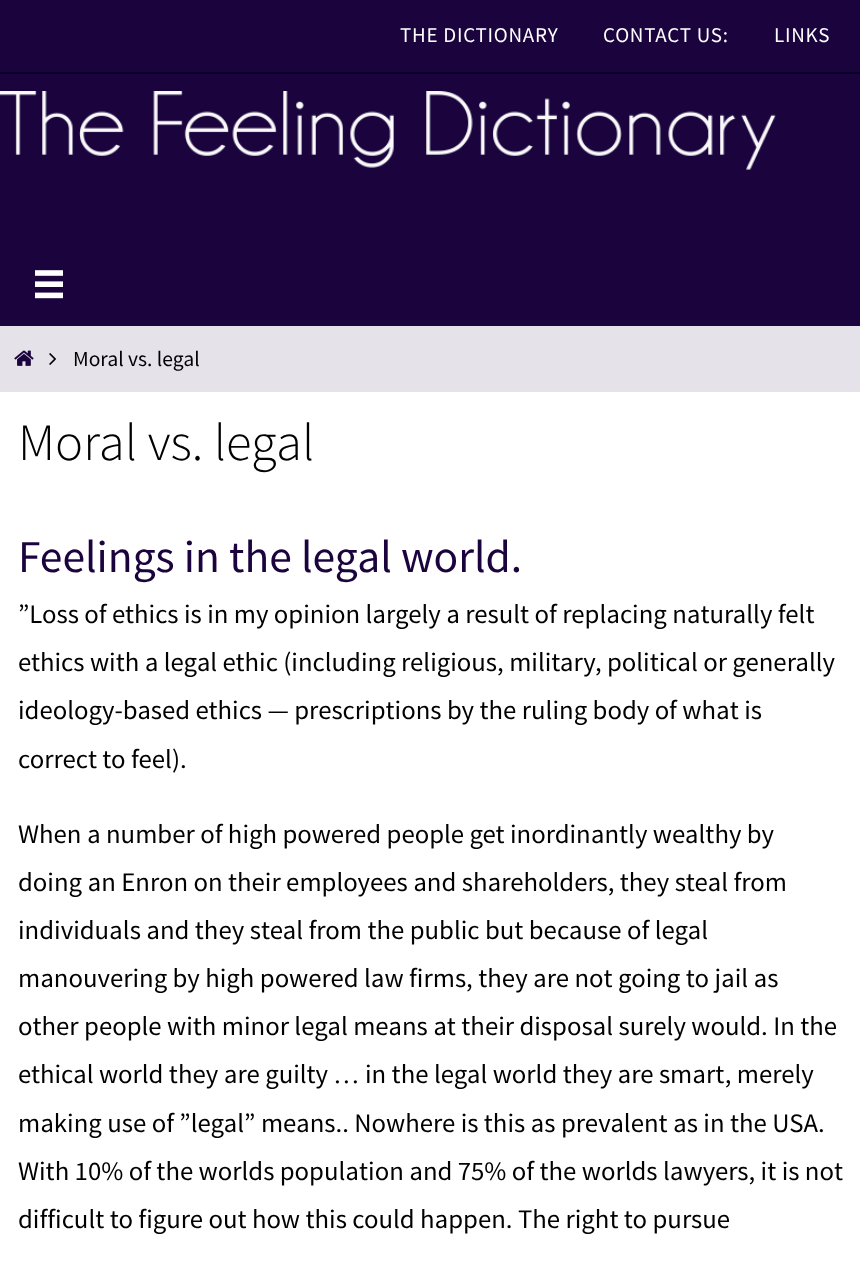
<svg xmlns="http://www.w3.org/2000/svg" width="860" height="1266" viewBox="0 0 860 1266">
  <style>
    .t1 { font: 21px Source Sans Pro; letter-spacing: 0.75px; fill: #fff; }
    .t2 { font: 21.5px Source Sans Pro; fill: #000; }
    .t3 { font: 300 52.5px Source Sans Pro; fill: #000; }
    .t4 { font: 45.5px Source Sans Pro; fill: #1b043e; }
    .t5 { font: 26.75px Source Sans Pro; fill: #000; }
    .t6 { font: 26.75px Liberation Serif; fill: #000; }
  </style>
  <rect width="100%" height="100%" fill="#1b043e"/>
  <rect x="0" y="72" width="860" height="2" fill="#07002a"/>
  <text x="400" y="42" class="t1">THE DICTIONARY</text>
  <text x="603" y="42" class="t1">CONTACT US:</text>
  <text x="774" y="42" class="t1">LINKS</text>
  <image x="0" y="91" width="776" height="79" href="images/1.png"/>
  <image x="35" y="270" width="28" height="29" href="images/2.png"/>
  <rect x="0" y="326" width="860" height="66" fill="#e6e2ea"/>
  <image x="14" y="350" width="20" height="16" href="images/3.png"/>
  <image x="49" y="353" width="7" height="12" href="images/4.png"/>
  <text x="73" y="366" class="t2">Moral vs. legal</text>
  <rect x="0" y="392" width="860" height="874" fill="#fff"/>
  <text x="18" y="460" class="t3">Moral vs. legal</text>
  <text x="18" y="572" class="t4">Feelings in the legal world.</text>
  <text x="18" y="623" class="t5">”Loss of ethics is in my opinion largely a result of replacing naturally felt</text>
  <text x="18" y="671" class="t5">ethics with a legal ethic (including religious, military, political or generally</text>
  <text x="18" y="719" class="t5">ideology-based ethics — prescriptions by the ruling body of what is</text>
  <text x="18" y="768" class="t5">correct to feel).</text>
  <text x="18" y="843" class="t5">When a number of high powered people get inordinantly wealthy by</text>
  <text x="18" y="891" class="t5">doing an Enron on their employees and shareholders, they steal from</text>
  <text x="18" y="939" class="t5">individuals and they steal from the public but because of legal</text>
  <text x="18" y="987" class="t5">manouvering by high powered law firms, they are not going to jail as</text>
  <text x="18" y="1035" class="t5">other people with minor legal means at their disposal surely would. In the</text>
  <text x="18" y="1083" class="t5">ethical world they are guilty</text>
  <text x="333" y="1083" class="t6">…</text>
  <text x="365" y="1083" class="t5">in the legal world they are smart, merely</text>
  <text x="18" y="1132" class="t5">making use of ”legal” means.. Nowhere is this as prevalent as in the USA.</text>
  <text x="18" y="1180" class="t5">With 10% of the worlds population and 75% of the worlds lawyers, it is not</text>
  <text x="18" y="1228" class="t5">difficult to figure out how this could happen. The right to pursue</text>
</svg>
